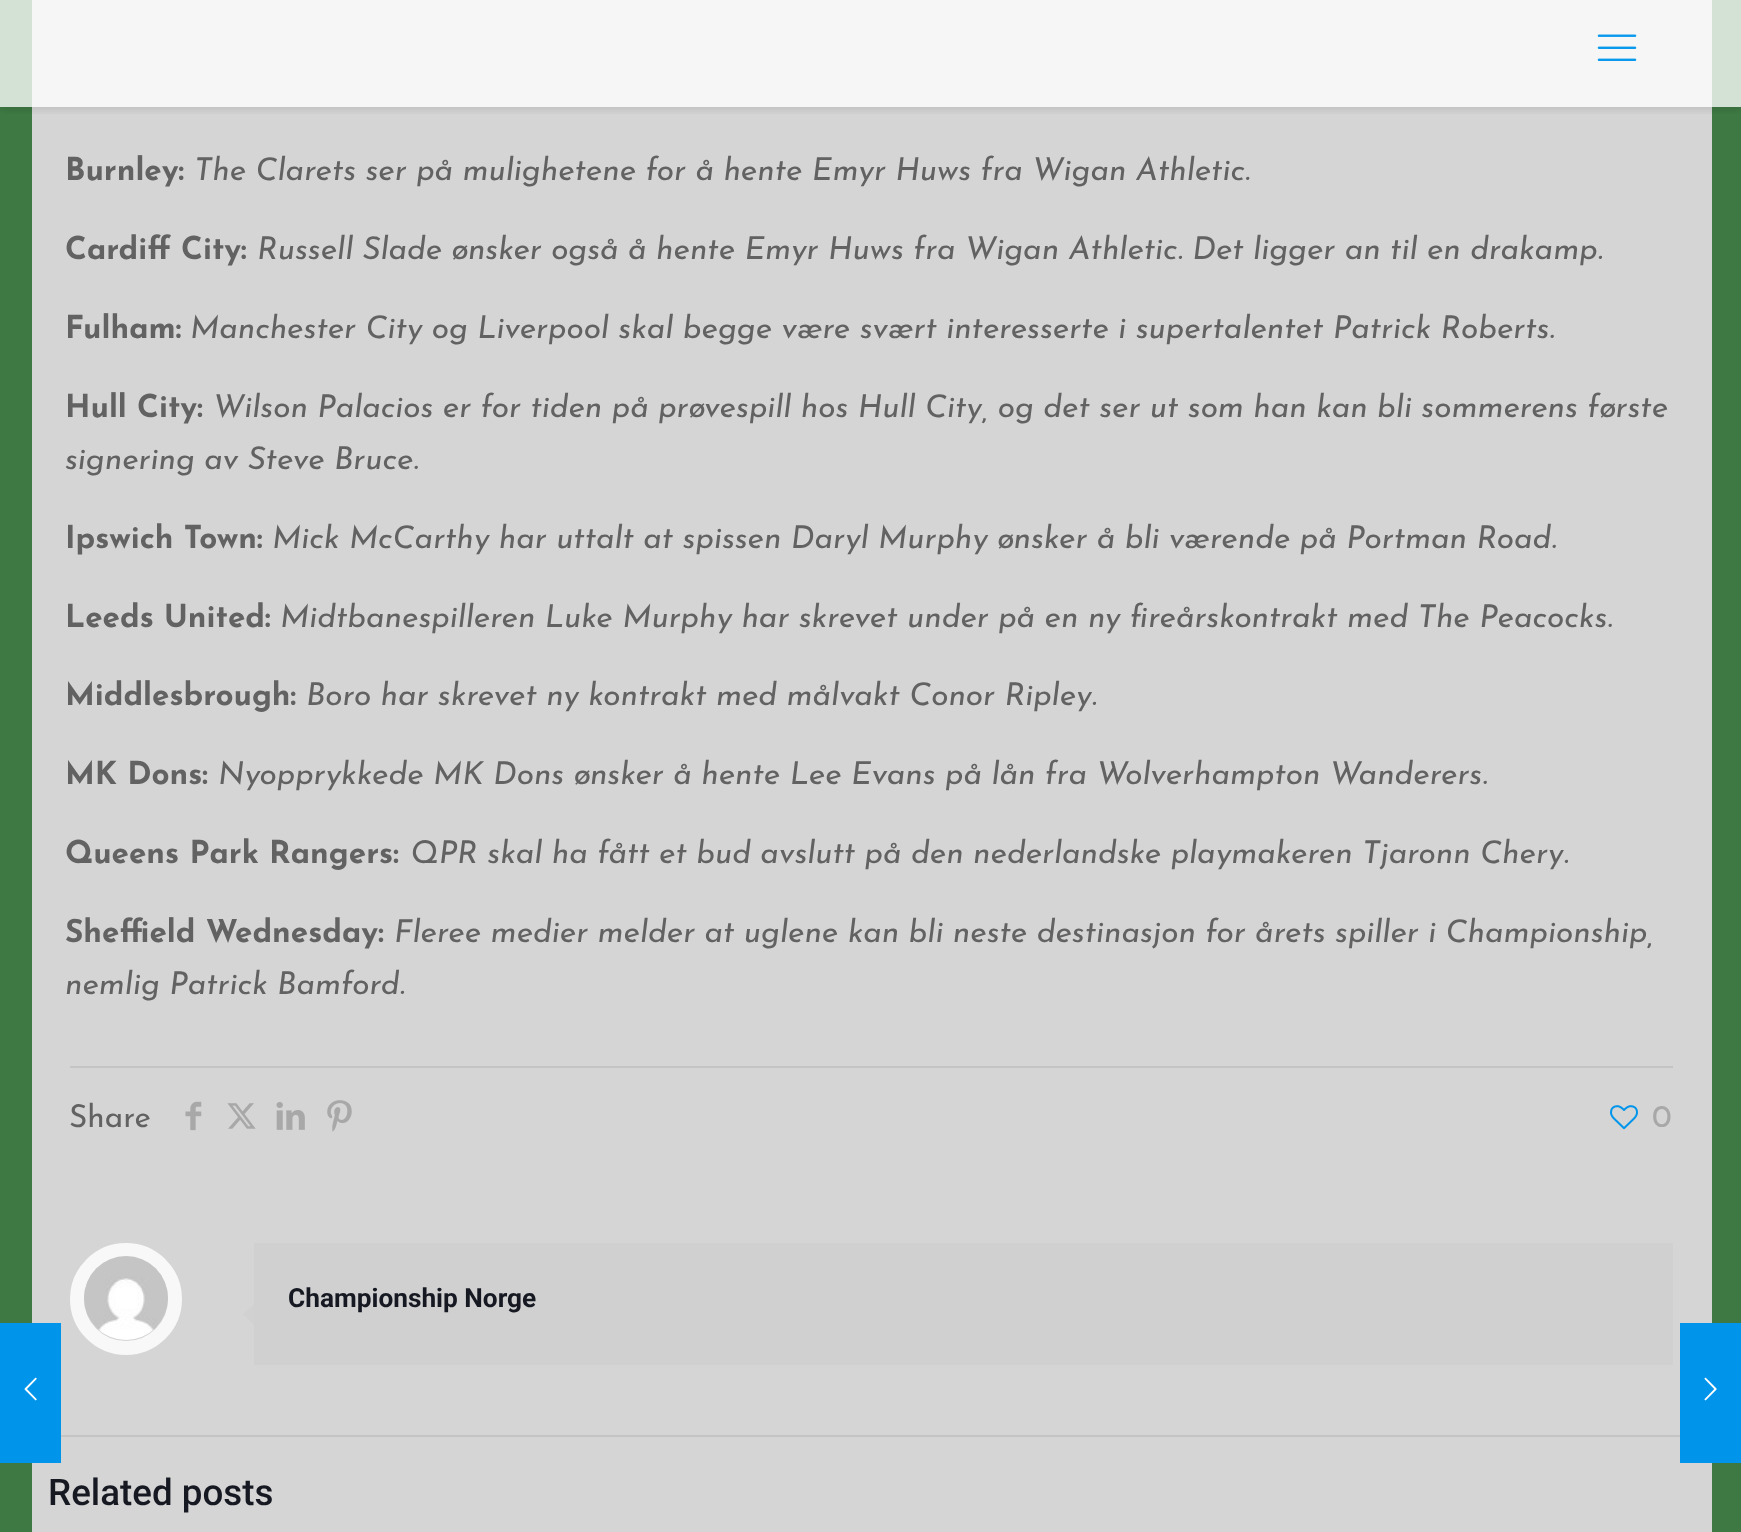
<svg xmlns="http://www.w3.org/2000/svg" width="1741" height="1532" viewBox="0 0 1741 1532">
  <style>
    .t1 { font: bold 31.5px Josefin Sans; fill: #626262; }
    .t2 { font: italic 31.5px Josefin Sans; fill: #626262; }
    .t3 { font: 31.5px Josefin Sans; fill: #626262; }
    .t4 { font: 31.5px Josefin Sans; fill: #a8a8a8; }
    .t5 { font: bold 26.25px Roboto; fill: #161922; }
    .t6 { font: 500 36.75px Roboto; fill: #161922; }
  </style>
  <defs>
    <clipPath id="clip1"><rect x="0" y="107" width="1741" height="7"/></clipPath>
  </defs>
  <rect width="100%" height="100%" fill="#3e7943"/>
  <rect x="32" y="0" width="1680" height="1532" fill="#d5d5d5"/>
  <rect x="0" y="1323" width="61" height="140" fill="#0095eb"/>
  <image x="24" y="1377" width="13" height="24" href="images/1.png"/>
  <g clip-path="url(#clip1)">
    <rect x="0" y="4" width="1741" height="106" fill="#0000001a" filter="blur(4.5px)"/>
  </g>
  <rect x="0" y="0" width="1741" height="107" fill="#ffffffc7"/>
  <image x="1597" y="34" width="40" height="27" href="images/2.png"/>
  <text x="65" y="180" class="t1">Burnley:</text>
  <text x="194" y="180" class="t2">The Clarets ser på mulighetene for å hente Emyr Huws fra Wigan Athletic.</text>
  <text x="65" y="259" class="t1">Cardiff City:</text>
  <text x="257" y="259" class="t2">Russell Slade ønsker også å hente Emyr Huws fra Wigan Athletic. Det ligger an til en drakamp.</text>
  <text x="65" y="338" class="t1">Fulham:</text>
  <text x="190" y="338" class="t2">Manchester City og Liverpool skal begge være svært interesserte i supertalentet Patrick Roberts.</text>
  <text x="65" y="417" class="t1">Hull City:</text>
  <text x="213" y="417" class="t2">Wilson Palacios er for tiden på prøvespill hos Hull City, og det ser ut som han kan bli sommerens første</text>
  <text x="65" y="469" class="t2">signering av Steve Bruce.</text>
  <text x="65" y="548" class="t1">Ipswich Town:</text>
  <text x="272" y="548" class="t2">Mick McCarthy har uttalt at spissen Daryl Murphy ønsker å bli værende på Portman Road.</text>
  <text x="65" y="627" class="t1">Leeds United:</text>
  <text x="280" y="627" class="t2">Midtbanespilleren Luke Murphy har skrevet under på en ny fireårskontrakt med The Peacocks.</text>
  <text x="65" y="705" class="t1">Middlesbrough:</text>
  <text x="306" y="705" class="t2">Boro har skrevet ny kontrakt med målvakt Conor Ripley.</text>
  <text x="65" y="784" class="t1">MK Dons:</text>
  <text x="218" y="784" class="t2">Nyopprykkede MK Dons ønsker å hente Lee Evans på lån fra Wolverhampton Wanderers.</text>
  <text x="65" y="863" class="t1">Queens Park Rangers:</text>
  <text x="409" y="863" class="t2">QPR skal ha fått et bud avslutt på den nederlandske playmakeren Tjaronn Chery.</text>
  <text x="65" y="942" class="t1">Sheffield Wednesday:</text>
  <text x="394" y="942" class="t2">Fleree medier melder at uglene kan bli neste destinasjon for årets spiller i Championship,</text>
  <text x="65" y="994" class="t2">nemlig Patrick Bamford.</text>
  <rect x="70" y="1066" width="1603" height="2" fill="#c4c4c4"/>
  <text x="69" y="1127" class="t3">Share</text>
  <image x="185" y="1101" width="17" height="30" href="images/3.png"/>
  <image x="227" y="1103" width="29" height="26" href="images/4.png"/>
  <image x="276" y="1102" width="29" height="28" href="images/5.png"/>
  <image x="327" y="1100" width="25" height="32" href="images/6.png"/>
  <image x="1610" y="1105" width="28" height="25" href="images/7.png"/>
  <text x="1652" y="1127" class="t4">0</text>
  <circle cx="126" cy="1299" r="49" fill="none" stroke="#f8f8f8" stroke-width="14"/>
  <image x="84" y="1256" width="84" height="84" href="images/8.png"/>
  <rect x="254" y="1243" width="1419" height="122" fill="#d0d0d0"/>
  <path d="M254 1304V1325L243 1314Z" fill="#d1d1d1"/>
  <text x="288" y="1307" class="t5">Championship Norge</text>
  <rect x="61" y="1435" width="1619" height="2" fill="#c4c4c4"/>
  <text x="48" y="1505" class="t6">Related posts</text>
  <rect x="1680" y="1323" width="61" height="140" fill="#0095eb"/>
  <image x="1704" y="1377" width="13" height="24" href="images/9.png"/>
</svg>
